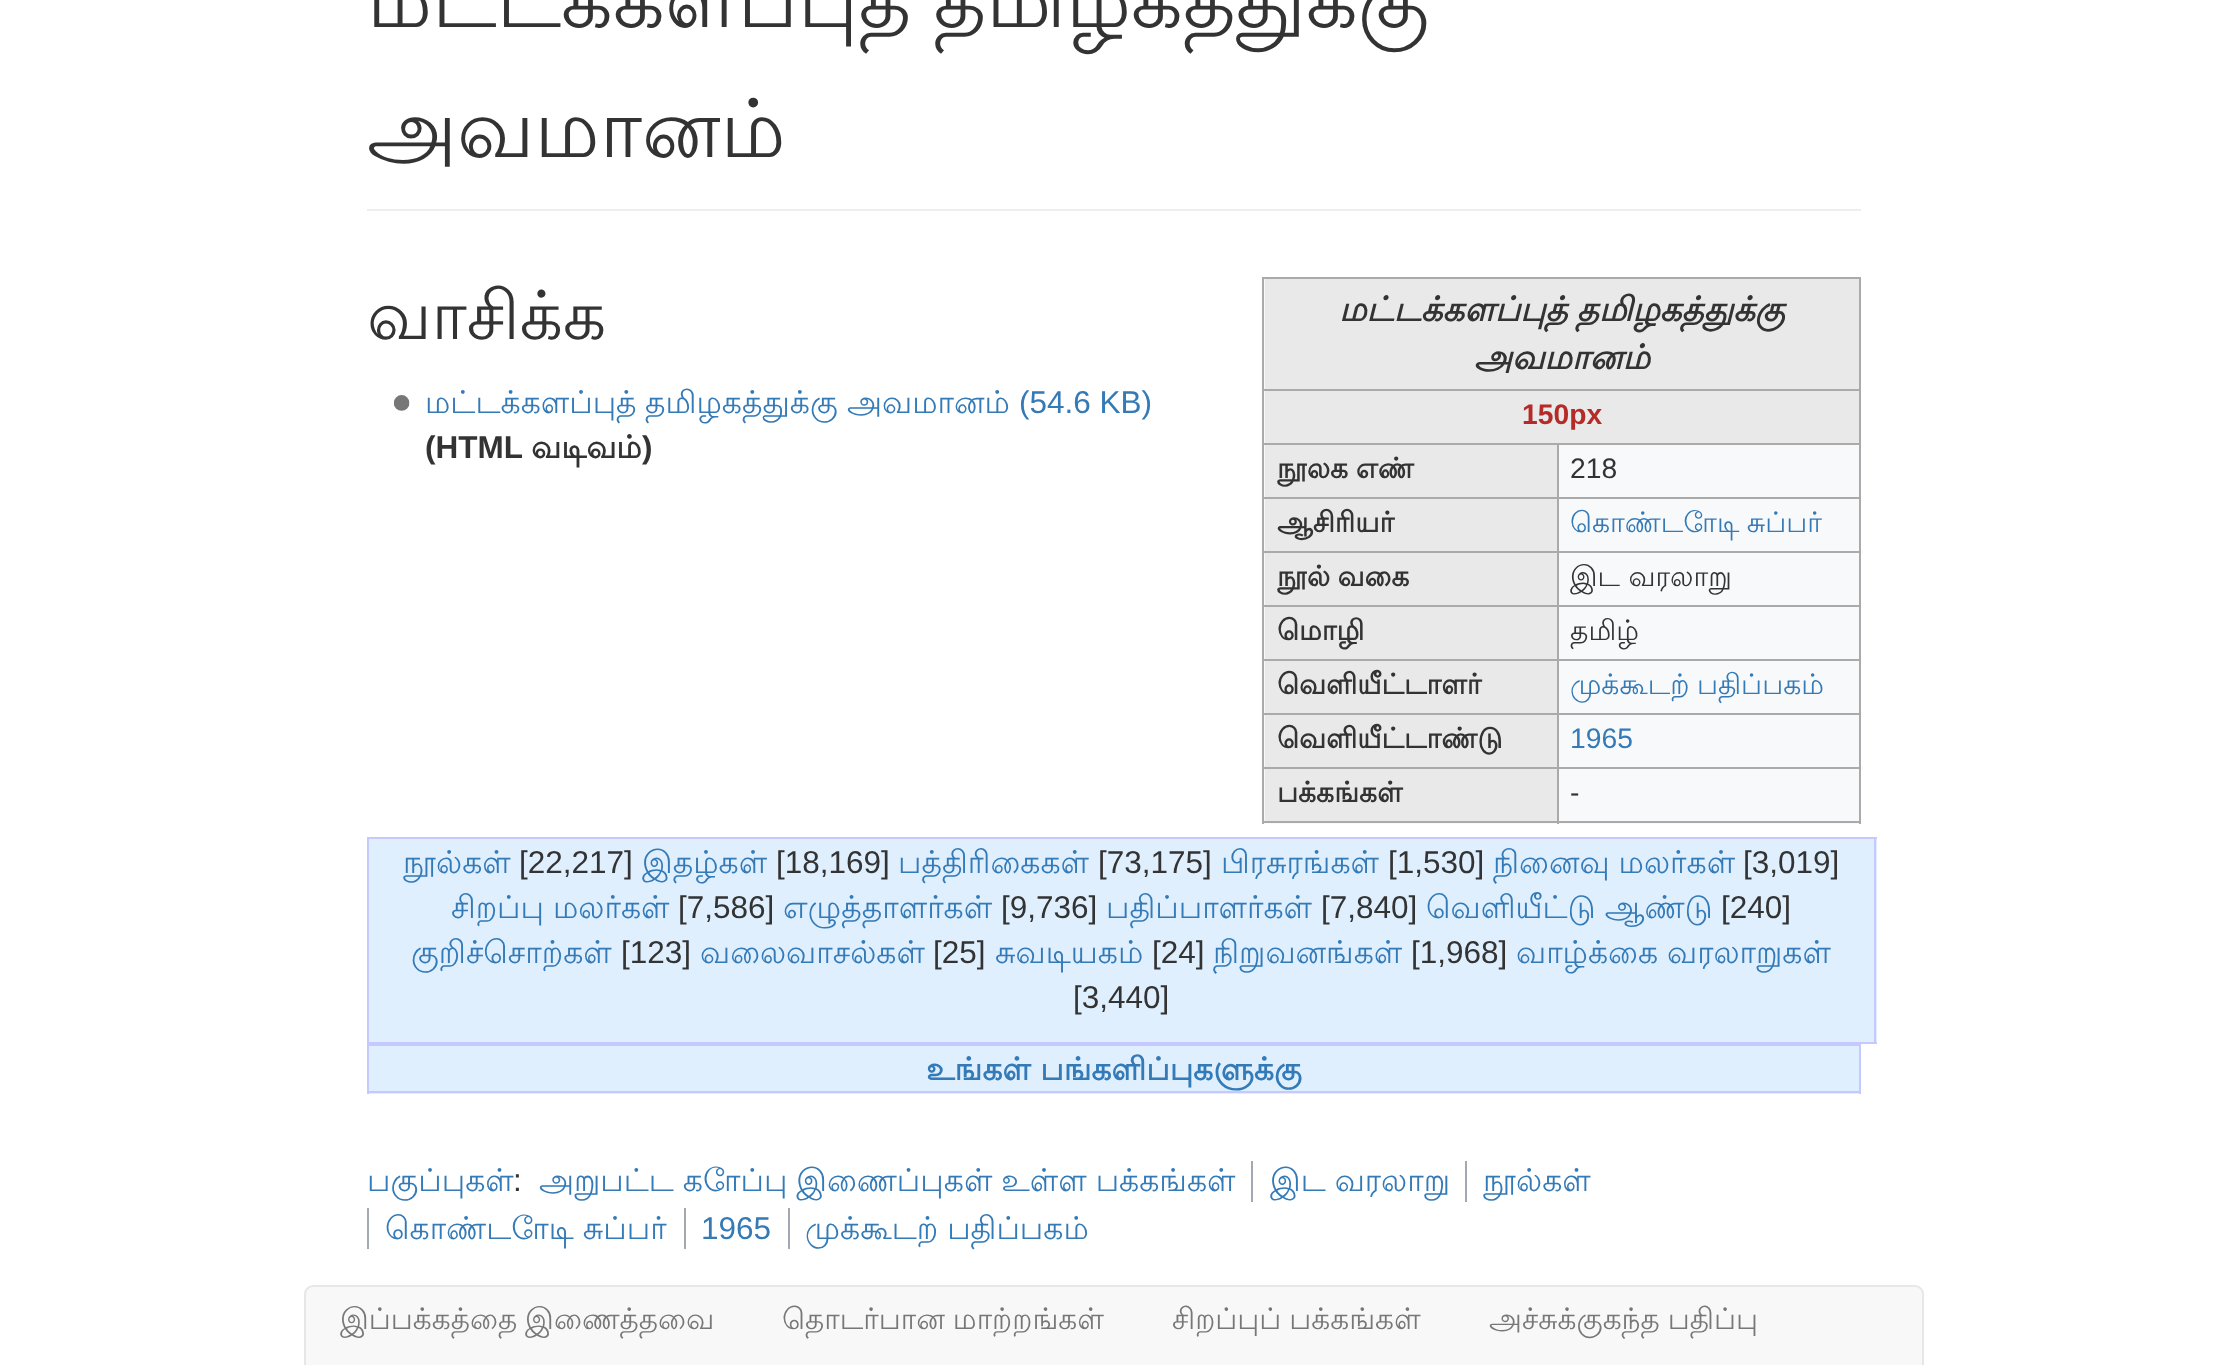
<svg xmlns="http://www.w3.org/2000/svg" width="2227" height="1365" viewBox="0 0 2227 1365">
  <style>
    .t1 { font: 81px Lohit Tamil; fill: #333; }
    .t2 { font: 67.5px Lohit Tamil; fill: #333; }
    .t3 { font: italic bold 34px Lohit Tamil; fill: #333; }
    .t4 { font: bold 28.25px Liberation Sans; fill: #b52b27; }
    .t5 { font: bold 28.25px Lohit Tamil; fill: #333; }
    .t6 { font: 28.25px Liberation Sans; fill: #333; }
    .t7 { font: 28.25px Lohit Tamil; fill: #337ab7; }
    .t8 { font: 28.25px Lohit Tamil; fill: #333; }
    .t9 { font: 28.25px Liberation Sans; fill: #337ab7; }
    .t10 { font: 31.5px Lohit Tamil; fill: #337ab7; }
    .t11 { font: 31.5px Liberation Sans; fill: #337ab7; }
    .t12 { font: bold 31.5px Liberation Sans; fill: #333; }
    .t13 { font: bold 31.5px Lohit Tamil; fill: #333; }
    .t14 { font: 31.5px Liberation Sans; fill: #333; }
    .t15 { font: bold 31.5px Lohit Tamil; fill: #337ab7; }
    .t16 { font: 29.6px Lohit Tamil; fill: #777; }
  </style>
  <rect width="100%" height="100%" fill="#fff"/>
  <rect x="367" y="209" width="1494" height="2" fill="#eee"/>
  <text x="367" y="27" word-spacing="-2" class="t1">மட்டக்களப்புத் தமிழகத்துக்கு</text>
  <text x="367" y="157" class="t1">அவமானம்</text>
  <text x="367" y="339" class="t2">வாசிக்க</text>
  <rect x="1264" y="279" width="595" height="545" fill="#f8f9fa"/>
  <rect x="1265" y="279" width="594" height="110" fill="#e9e9e9"/>
  <rect x="1262" y="277" width="599" height="2" fill="#aaa"/>
  <rect x="1262" y="389" width="599" height="2" fill="#aaa"/>
  <rect x="1557" y="443" width="304" height="2" fill="#aaa"/>
  <rect x="1557" y="497" width="304" height="2" fill="#aaa"/>
  <rect x="1557" y="551" width="304" height="2" fill="#aaa"/>
  <rect x="1557" y="605" width="304" height="2" fill="#aaa"/>
  <rect x="1557" y="659" width="304" height="2" fill="#aaa"/>
  <rect x="1557" y="713" width="304" height="2" fill="#aaa"/>
  <rect x="1557" y="767" width="304" height="2" fill="#aaa"/>
  <rect x="1859" y="767" width="2" height="57" fill="#aaa"/>
  <rect x="1859" y="713" width="2" height="57" fill="#aaa"/>
  <rect x="1859" y="659" width="2" height="57" fill="#aaa"/>
  <rect x="1859" y="605" width="2" height="57" fill="#aaa"/>
  <rect x="1859" y="551" width="2" height="57" fill="#aaa"/>
  <rect x="1859" y="497" width="2" height="57" fill="#aaa"/>
  <rect x="1859" y="443" width="2" height="57" fill="#aaa"/>
  <rect x="1859" y="389" width="2" height="57" fill="#aaa"/>
  <rect x="1859" y="277" width="2" height="115" fill="#aaa"/>
  <rect x="1557" y="821" width="304" height="2" fill="#aaa"/>
  <rect x="1557" y="767" width="2" height="57" fill="#aaa"/>
  <rect x="1262" y="767" width="297" height="2" fill="#aaa"/>
  <rect x="1557" y="713" width="2" height="57" fill="#aaa"/>
  <rect x="1262" y="713" width="297" height="2" fill="#aaa"/>
  <rect x="1557" y="659" width="2" height="57" fill="#aaa"/>
  <rect x="1262" y="659" width="297" height="2" fill="#aaa"/>
  <rect x="1557" y="605" width="2" height="57" fill="#aaa"/>
  <rect x="1262" y="605" width="297" height="2" fill="#aaa"/>
  <rect x="1557" y="551" width="2" height="57" fill="#aaa"/>
  <rect x="1262" y="551" width="297" height="2" fill="#aaa"/>
  <rect x="1557" y="497" width="2" height="57" fill="#aaa"/>
  <rect x="1262" y="497" width="297" height="2" fill="#aaa"/>
  <rect x="1557" y="443" width="2" height="57" fill="#aaa"/>
  <rect x="1262" y="443" width="297" height="2" fill="#aaa"/>
  <rect x="1262" y="821" width="297" height="2" fill="#aaa"/>
  <rect x="1262" y="767" width="2" height="57" fill="#aaa"/>
  <rect x="1262" y="713" width="2" height="57" fill="#aaa"/>
  <rect x="1262" y="659" width="2" height="57" fill="#aaa"/>
  <rect x="1262" y="605" width="2" height="57" fill="#aaa"/>
  <rect x="1262" y="551" width="2" height="57" fill="#aaa"/>
  <rect x="1262" y="497" width="2" height="57" fill="#aaa"/>
  <rect x="1262" y="443" width="2" height="57" fill="#aaa"/>
  <rect x="1262" y="389" width="2" height="57" fill="#aaa"/>
  <rect x="1262" y="277" width="2" height="115" fill="#aaa"/>
  <text x="1339" y="321" word-spacing="-1" class="t3">மட்டக்களப்புத் தமிழகத்துக்கு</text>
  <text x="1474" y="369" class="t3">அவமானம்</text>
  <rect x="1265" y="391" width="594" height="52" fill="#e9e9e9"/>
  <text x="1522" y="424" class="t4">150px</text>
  <rect x="1265" y="445" width="292" height="52" fill="#e9e9e9"/>
  <text x="1277" y="478" word-spacing="-1" class="t5">நூலக எண்</text>
  <text x="1570" y="478" class="t6">218</text>
  <rect x="1265" y="499" width="292" height="52" fill="#e9e9e9"/>
  <text x="1277" y="532" class="t5">ஆசிரியர்</text>
  <text x="1570" y="532" word-spacing="-1" class="t7">கொண்டோடி சுப்பர்</text>
  <rect x="1265" y="553" width="292" height="52" fill="#e9e9e9"/>
  <text x="1277" y="586" word-spacing="-1" class="t5">நூல் வகை</text>
  <text x="1570" y="586" class="t8">இட வரலாறு</text>
  <rect x="1265" y="607" width="292" height="52" fill="#e9e9e9"/>
  <text x="1277" y="640" class="t5">மொழி</text>
  <text x="1570" y="640" class="t8">தமிழ்</text>
  <rect x="1265" y="661" width="292" height="52" fill="#e9e9e9"/>
  <text x="1277" y="694" class="t5">வெளியீட்டாளர்</text>
  <text x="1570" y="694" word-spacing="-1" class="t7">முக்கூடற் பதிப்பகம்</text>
  <rect x="1265" y="715" width="292" height="52" fill="#e9e9e9"/>
  <text x="1277" y="748" class="t5">வெளியீட்டாண்டு</text>
  <text x="1570" y="748" class="t9">1965</text>
  <rect x="1265" y="769" width="292" height="52" fill="#e9e9e9"/>
  <text x="1277" y="802" class="t5">பக்கங்கள்</text>
  <text x="1570" y="802" class="t6">-</text>
  <image x="394" y="395" width="16" height="16" href="images/1.png"/>
  <text x="425" y="413" class="t10">மட்டக்களப்புத்</text>
  <text x="645" y="413" class="t10">தமிழகத்துக்கு</text>
  <text x="847" y="413" class="t10">அவமானம்</text>
  <text x="1019" y="413" class="t11">(54.6 KB)</text>
  <text x="425" y="458" class="t12">(HTML</text>
  <text x="531" y="458" class="t13">வடிவம்</text>
  <text x="642" y="458" class="t12">)</text>
  <rect x="369" y="839" width="1508" height="203" fill="#dfeffe"/>
  <rect x="367" y="837" width="1510" height="2" fill="#c6c9ff"/>
  <rect x="1874" y="837" width="2" height="207" fill="#c6c9ff"/>
  <rect x="367" y="1042" width="1510" height="2" fill="#c6c9ff"/>
  <rect x="367" y="837" width="2" height="207" fill="#c6c9ff"/>
  <text x="403" y="873" class="t10">நூல்கள்</text>
  <text x="519" y="873" class="t14">[22,217]</text>
  <text x="642" y="873" class="t10">இதழ்கள்</text>
  <text x="776" y="873" class="t14">[18,169]</text>
  <text x="898" y="873" class="t10">பத்திரிகைகள்</text>
  <text x="1098" y="873" class="t14">[73,175]</text>
  <text x="1221" y="873" class="t10">பிரசுரங்கள்</text>
  <text x="1388" y="873" class="t14">[1,530]</text>
  <text x="1493" y="873" word-spacing="-0.5" class="t10">நினைவு மலர்கள்</text>
  <text x="1743" y="873" class="t14">[3,019]</text>
  <text x="451" y="918" word-spacing="-0.5" class="t10">சிறப்பு மலர்கள்</text>
  <text x="678" y="918" class="t14">[7,586]</text>
  <text x="783" y="918" class="t10">எழுத்தாளர்கள்</text>
  <text x="1001" y="918" class="t14">[9,736]</text>
  <text x="1106" y="918" class="t10">பதிப்பாளர்கள்</text>
  <text x="1321" y="918" class="t14">[7,840]</text>
  <text x="1426" y="918" word-spacing="-0.5" class="t10">வெளியீட்டு ஆண்டு</text>
  <text x="1721" y="918" class="t14">[240]</text>
  <text x="411" y="963" class="t10">குறிச்சொற்கள்</text>
  <text x="621" y="963" class="t14">[123]</text>
  <text x="700" y="963" class="t10">வலைவாசல்கள்</text>
  <text x="933" y="963" class="t14">[25]</text>
  <text x="995" y="963" class="t10">சுவடியகம்</text>
  <text x="1152" y="963" class="t14">[24]</text>
  <text x="1213" y="963" class="t10">நிறுவனங்கள்</text>
  <text x="1411" y="963" class="t14">[1,968]</text>
  <text x="1516" y="963" word-spacing="-0.5" class="t10">வாழ்க்கை வரலாறுகள்</text>
  <text x="1073" y="1008" class="t14">[3,440]</text>
  <rect x="369" y="1046" width="1490" height="48" fill="#dfeffe"/>
  <rect x="367" y="1044" width="1494" height="2" fill="#c6c9ff"/>
  <rect x="1859" y="1044" width="2" height="50" fill="#c6c9ff"/>
  <rect x="367" y="1091" width="1494" height="2" fill="#c6c9ff"/>
  <rect x="367" y="1044" width="2" height="50" fill="#c6c9ff"/>
  <text x="926" y="1080" class="t15">உங்கள் பங்களிப்புகளுக்கு</text>
  <text x="539" y="1191" word-spacing="-0.5" class="t10">அறுபட்ட கோப்பு இணைப்புகள் உள்ள பக்கங்கள்</text>
  <rect x="1251" y="1161" width="2" height="41" fill="#a2a9b1"/>
  <text x="1270" y="1191" word-spacing="-0.5" class="t10">இட வரலாறு</text>
  <rect x="1465" y="1161" width="2" height="41" fill="#a2a9b1"/>
  <text x="1483" y="1191" class="t10">நூல்கள்</text>
  <rect x="367" y="1208" width="2" height="41" fill="#a2a9b1"/>
  <text x="385" y="1239" word-spacing="-0.5" class="t10">கொண்டோடி சுப்பர்</text>
  <rect x="684" y="1208" width="2" height="41" fill="#a2a9b1"/>
  <text x="701" y="1239" class="t11">1965</text>
  <rect x="788" y="1208" width="2" height="41" fill="#a2a9b1"/>
  <text x="805" y="1239" word-spacing="-0.5" class="t10">முக்கூடற் பதிப்பகம்</text>
  <text x="367" y="1191" class="t10">பகுப்புகள்</text>
  <text x="513" y="1191" class="t14">:</text>
  <rect x="305" y="1286" width="1618" height="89" rx="8" fill="#f8f8f8" stroke="#e7e7e7" stroke-width="2"/>
  <text x="340" y="1329" word-spacing="-1" class="t16">இப்பக்கத்தை இணைத்தவை</text>
  <text x="782" y="1329" word-spacing="-1" class="t16">தொடர்பான மாற்றங்கள்</text>
  <text x="1172" y="1329" word-spacing="-1" class="t16">சிறப்புப் பக்கங்கள்</text>
  <text x="1489" y="1329" word-spacing="-1" class="t16">அச்சுக்குகந்த பதிப்பு</text>
</svg>
